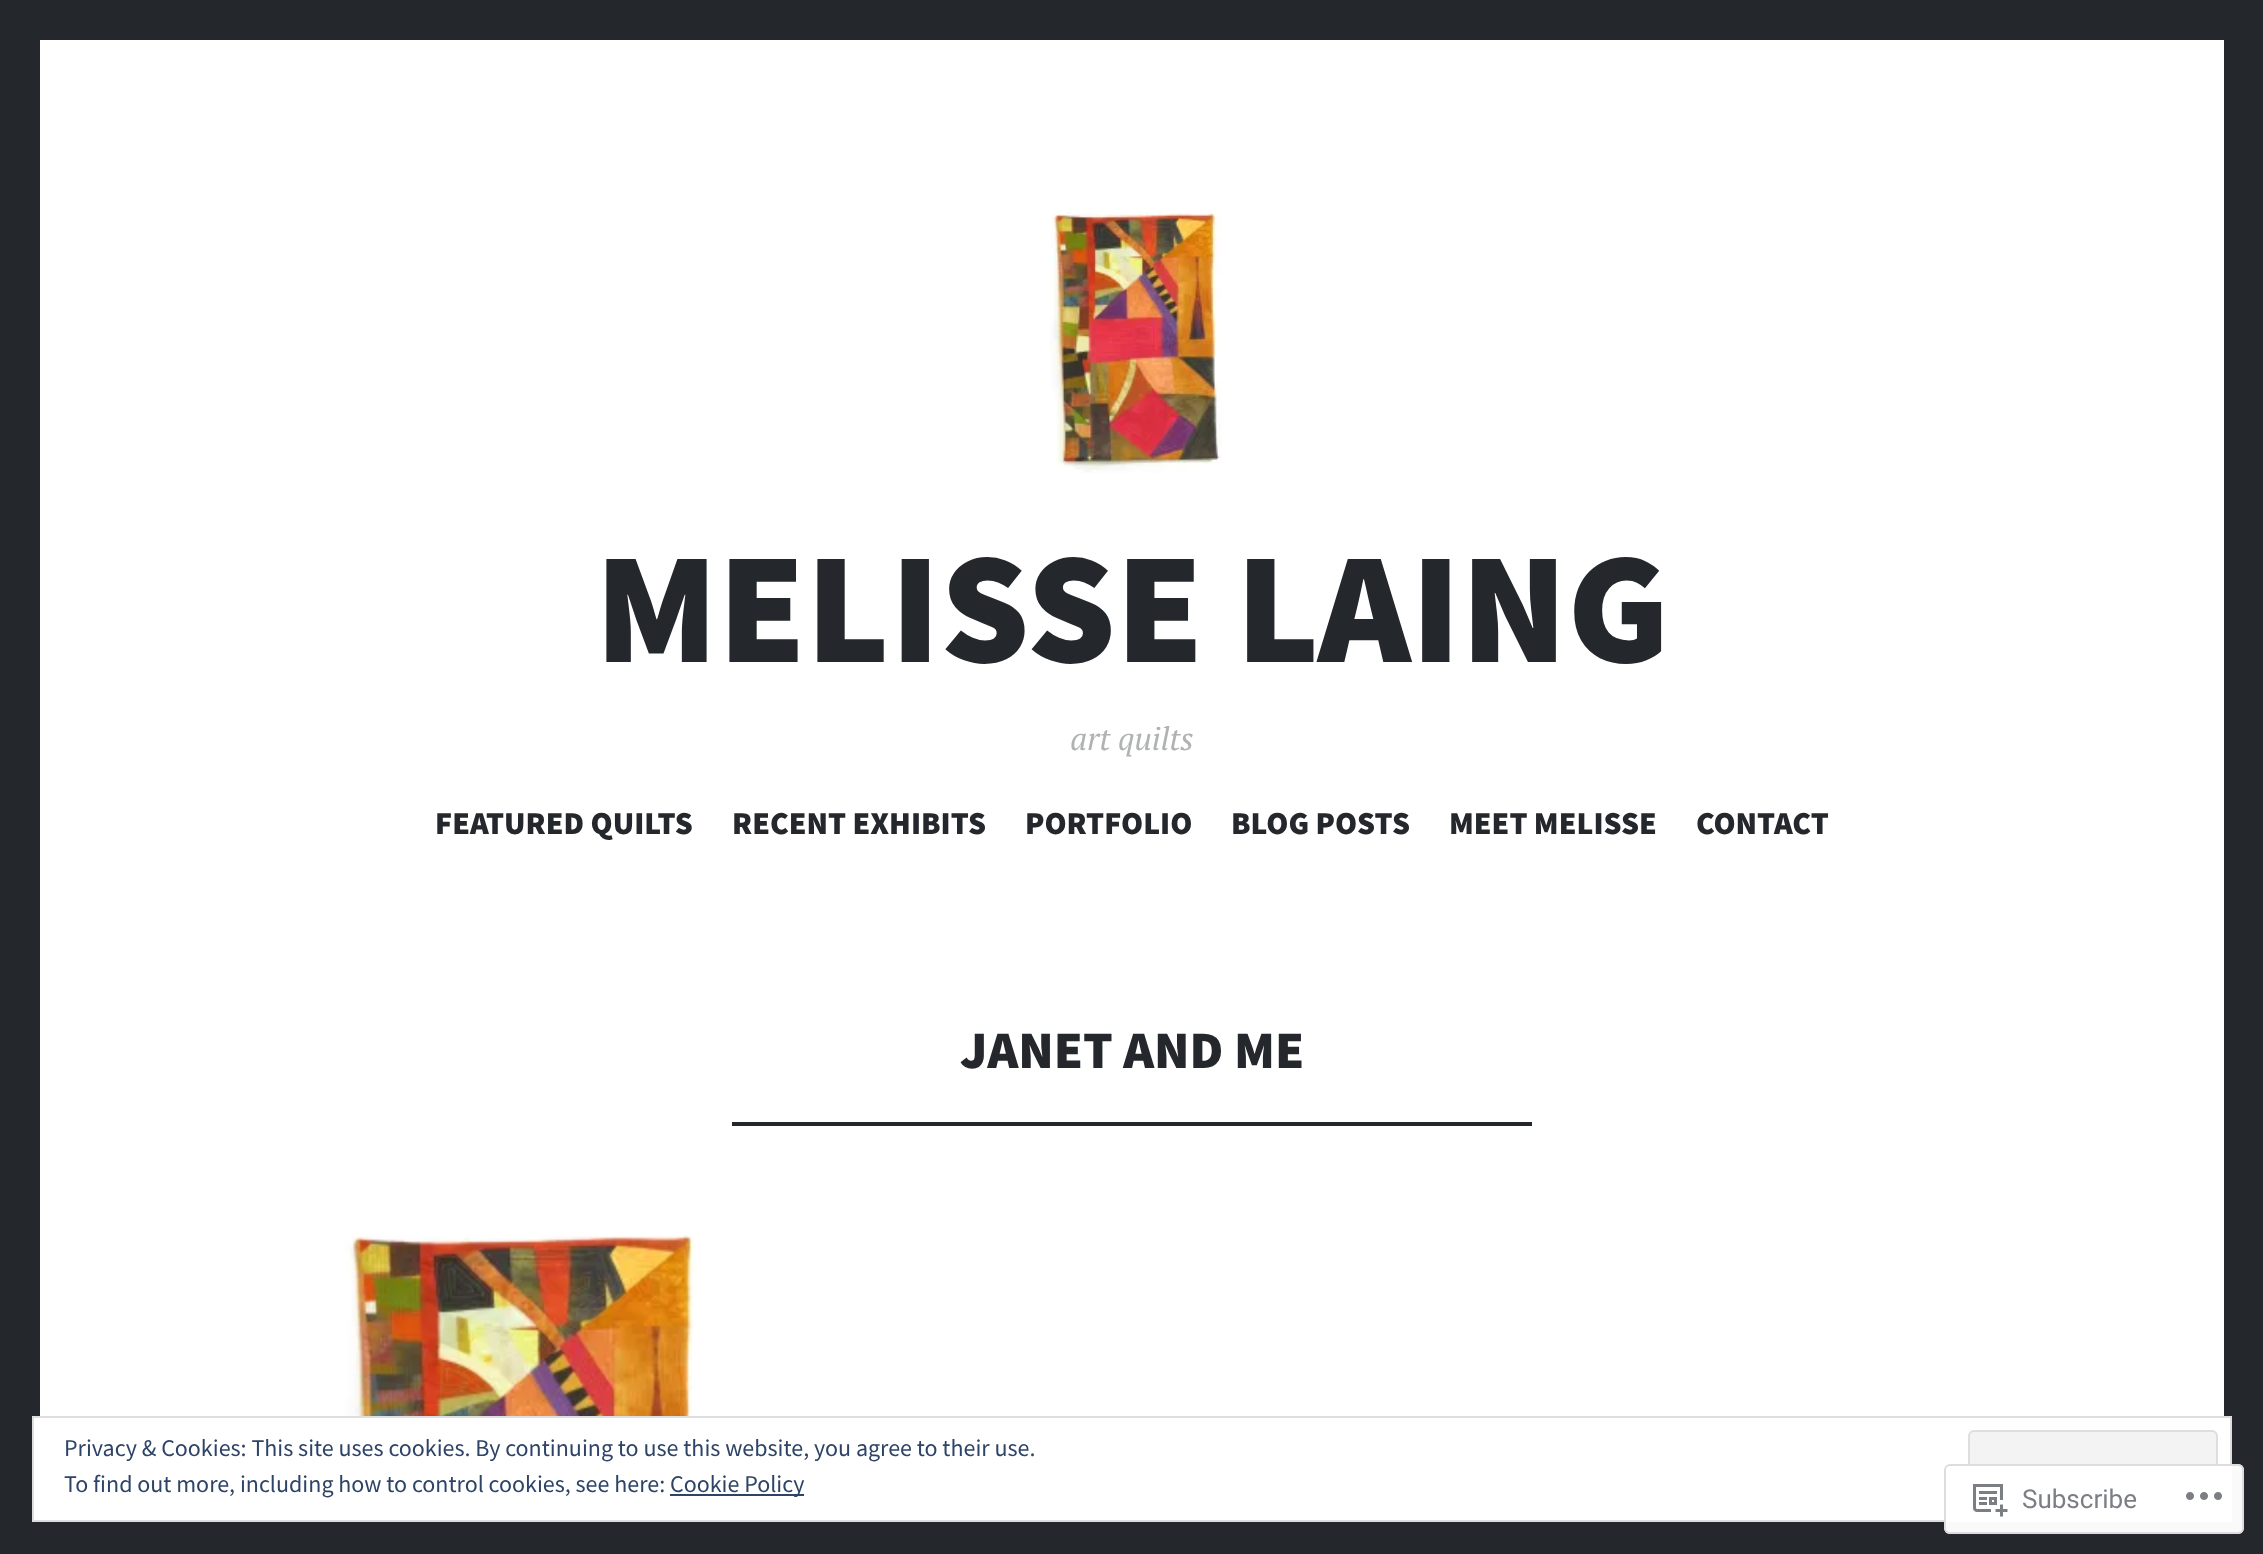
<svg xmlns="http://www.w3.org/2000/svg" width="2263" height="1554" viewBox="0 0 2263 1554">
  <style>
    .t1 { font: 900 158.5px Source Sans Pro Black; fill: #24282d; }
    .t2 { font: italic 32px PT Serif; fill: #b1b2b3; }
    .t3 { font: 900 32px Source Sans Pro Black; fill: #24282d; }
    .t4 { font: 900 52.75px Source Sans Pro Black; fill: #24282d; }
    .t5 { font: 24px Source Sans Pro; fill: #2e4467; }
    .t6 { font: 26px Roboto; fill: #7b7f84; }
  </style>
  <rect width="100%" height="100%" fill="#24282d"/>
  <rect x="40" y="40" width="2184" height="1376" fill="#fff"/>
  <image x="1050" y="212" width="172" height="261" href="images/1.png"/>
  <text x="595" y="662" class="t1">MELISSE LAING</text>
  <text x="1070" y="750" class="t2">art quilts</text>
  <text x="435" y="834" class="t3">FEATURED QUILTS</text>
  <text x="732" y="834" class="t3">RECENT EXHIBITS</text>
  <text x="1025" y="834" class="t3">PORTFOLIO</text>
  <text x="1231" y="834" class="t3">BLOG POSTS</text>
  <text x="1449" y="834" class="t3">MEET MELISSE</text>
  <text x="1696" y="834" class="t3">CONTACT</text>
  <text x="960" y="1068" class="t4">JANET AND ME</text>
  <rect x="732" y="1122" width="800" height="4" fill="#24282d"/>
  <image x="343" y="1235" width="352" height="181" href="images/2.png"/>
  <rect x="33" y="1417" width="2198" height="104" fill="#fff" stroke="#dedede" stroke-width="2"/>
  <text x="64" y="1456" class="t5">Privacy &amp; Cookies: This site uses cookies. By continuing to use this website, you agree to their use.</text>
  <rect x="1969" y="1431" width="248" height="76" rx="5" fill="#f3f3f3" stroke="#dedede" stroke-width="2"/>
  <text x="64" y="1492" class="t5">To find out more, including how to control cookies, see here:</text>
  <rect x="670" y="1494" width="134" height="2" fill="#2e4467"/>
  <text x="670" y="1492" class="t5">Cookie Policy</text>
  <rect x="1944" y="1464" width="300" height="70" rx="6" fill="#fffffffa"/>
  <rect x="1945" y="1465" width="298" height="68" rx="5" fill="none" stroke="#dcdcdefa" stroke-width="2"/>
  <image x="1973" y="1484" width="35" height="33" href="images/3.png"/>
  <text x="2022" y="1508" class="t6">Subscribe</text>
  <image x="2186" y="1492" width="36" height="8" href="images/4.png"/>
</svg>
